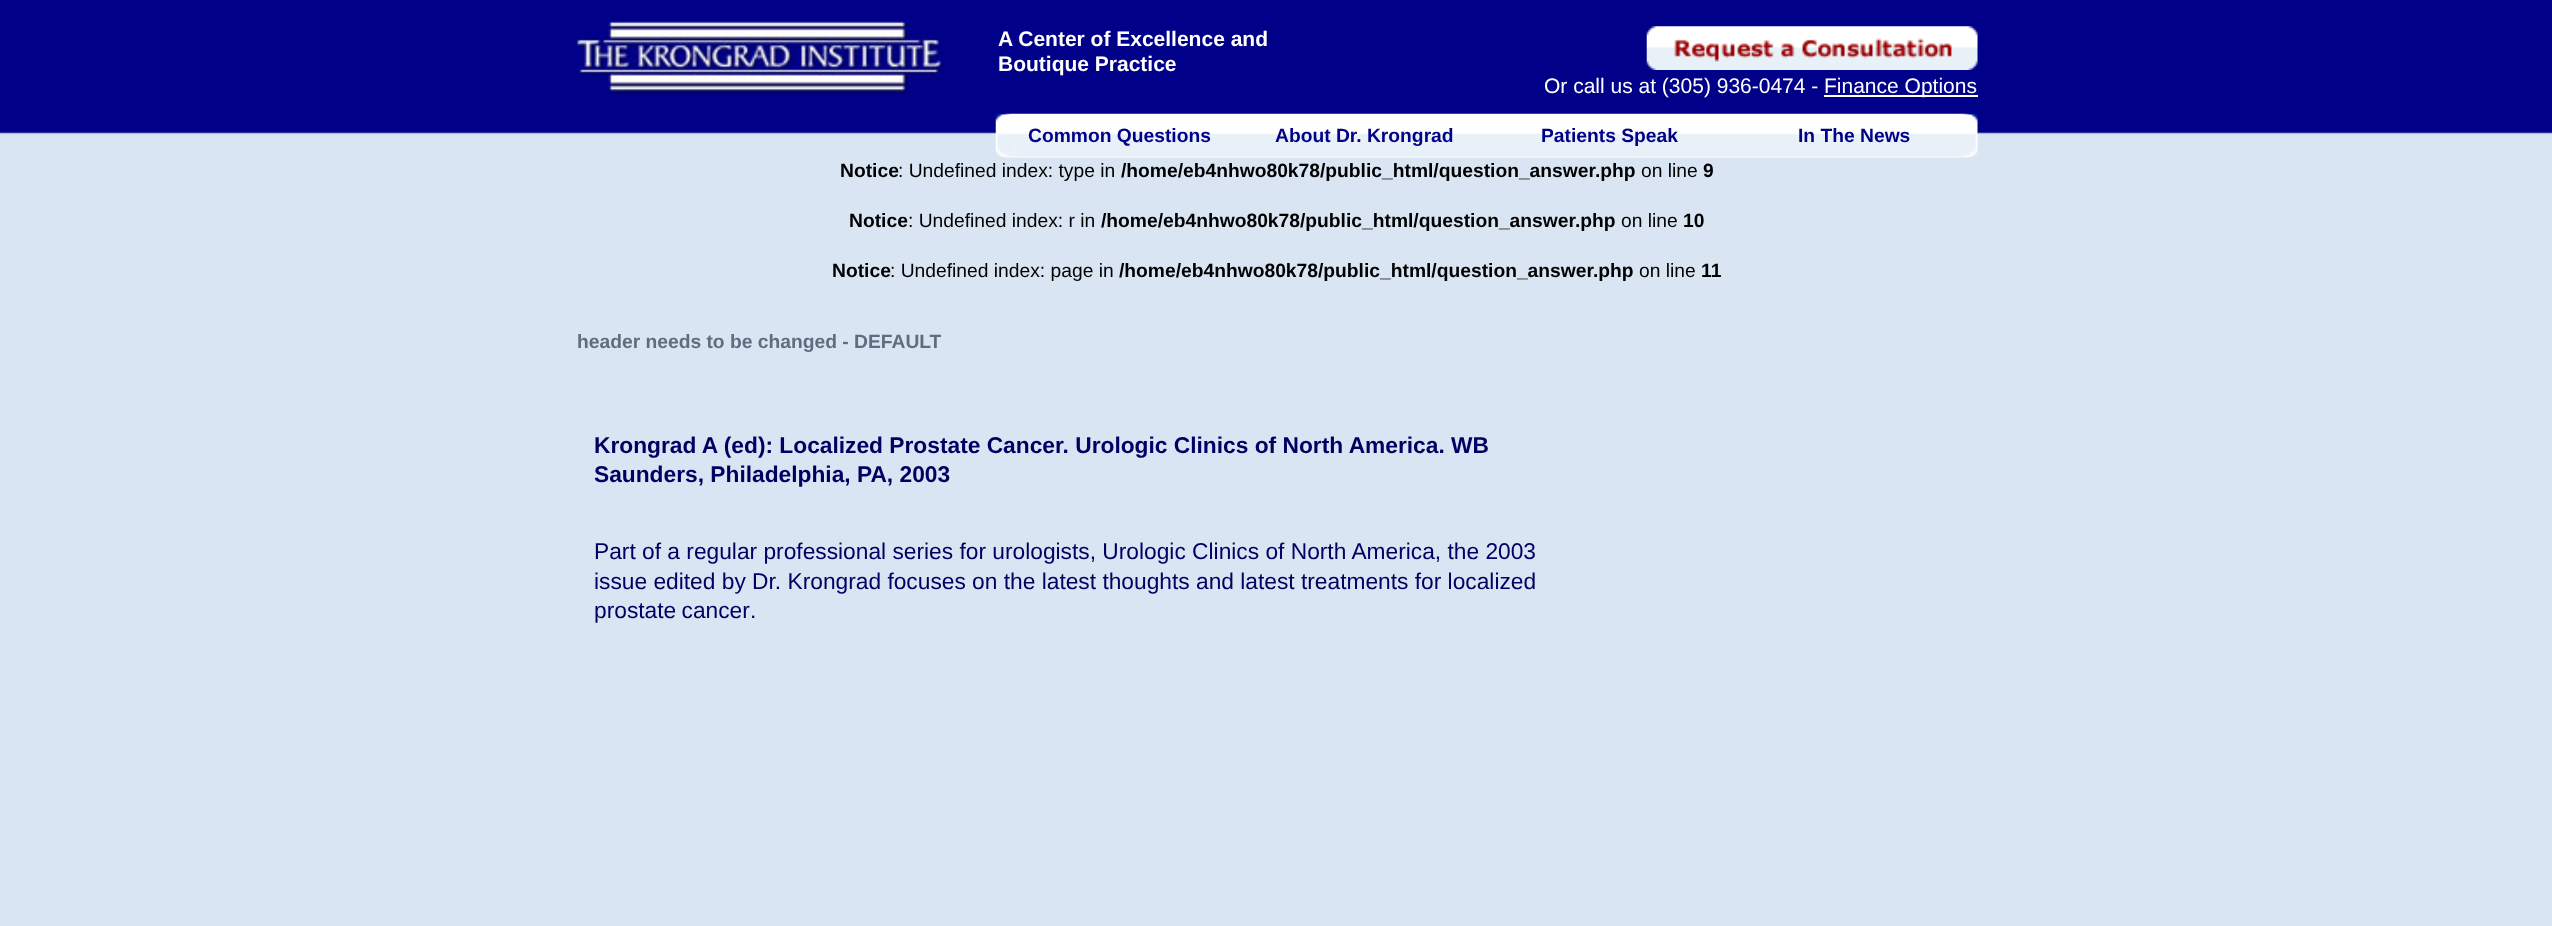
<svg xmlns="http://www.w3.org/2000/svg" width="2552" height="926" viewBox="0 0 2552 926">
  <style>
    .t1 { font: bold 21px Liberation Sans; fill: #fff; }
    .t2 { font: 21px Liberation Sans; fill: #fff; }
    .t3 { font: bold 19.25px Liberation Sans; fill: #008; }
    .t4 { font: bold 19.25px Liberation Sans; fill: #000; }
    .t5 { font: 19.25px Liberation Sans; fill: #000; }
    .t6 { font: bold 19.25px Liberation Sans; fill: #5e6e7e; }
    .t7 { font: bold 22.75px Liberation Sans; fill: #000062; }
    .t8 { font: 22.75px Liberation Sans; fill: #000062; }
  </style>
  <rect width="100%" height="100%" fill="#fff"/>
  <image x="0" y="0" width="2552" height="926" href="images/1.png"/>
  <image x="577" y="21" width="368" height="74" href="images/2.png"/>
  <text x="998" y="46" class="t1">A Center of Excellence and</text>
  <text x="998" y="71" class="t1">Boutique Practice</text>
  <image x="1646" y="26" width="332" height="44" href="images/3.png"/>
  <text x="1544" y="93" class="t2">Or call us at (305) 936-0474 -</text>
  <rect x="1824" y="95" width="154" height="2" fill="#fff"/>
  <text x="1824" y="93" class="t2">Finance Options</text>
  <image x="995" y="113" width="983" height="45" href="images/4.png"/>
  <text x="1028" y="142" class="t3">Common Questions</text>
  <text x="1275" y="142" class="t3">About Dr. Krongrad</text>
  <text x="1541" y="142" class="t3">Patients Speak</text>
  <text x="1798" y="142" class="t3">In The News</text>
  <text x="840" y="177" class="t4">Notice</text>
  <text x="898" y="177" class="t5">: Undefined index: type in</text>
  <text x="1121" y="177" class="t4">/home/eb4nhwo80k78/public_html/question_answer.php</text>
  <text x="1641" y="177" class="t5">on line</text>
  <text x="1703" y="177" class="t4">9</text>
  <text x="849" y="227" class="t4">Notice</text>
  <text x="908" y="227" class="t5">: Undefined index: r in</text>
  <text x="1101" y="227" class="t4">/home/eb4nhwo80k78/public_html/question_answer.php</text>
  <text x="1621" y="227" class="t5">on line</text>
  <text x="1683" y="227" class="t4">10</text>
  <text x="832" y="277" class="t4">Notice</text>
  <text x="890" y="277" class="t5">: Undefined index: page in</text>
  <text x="1119" y="277" class="t4">/home/eb4nhwo80k78/public_html/question_answer.php</text>
  <text x="1639" y="277" class="t5">on line</text>
  <text x="1701" y="277" class="t4">11</text>
  <text x="577" y="348" class="t6">header needs to be changed - DEFAULT</text>
  <text x="594" y="453" class="t7">Krongrad A (ed): Localized Prostate Cancer. Urologic Clinics of North America. WB</text>
  <text x="594" y="482" class="t7">Saunders, Philadelphia, PA, 2003</text>
  <text x="594" y="559" class="t8">Part of a regular professional series for urologists, Urologic Clinics of North America, the 2003</text>
  <text x="594" y="589" class="t8">issue edited by Dr. Krongrad focuses on the latest thoughts and latest treatments for localized</text>
  <text x="594" y="618" word-spacing="-1" class="t8">prostate cancer</text>
  <text x="750" y="618" class="t8">.</text>
</svg>
